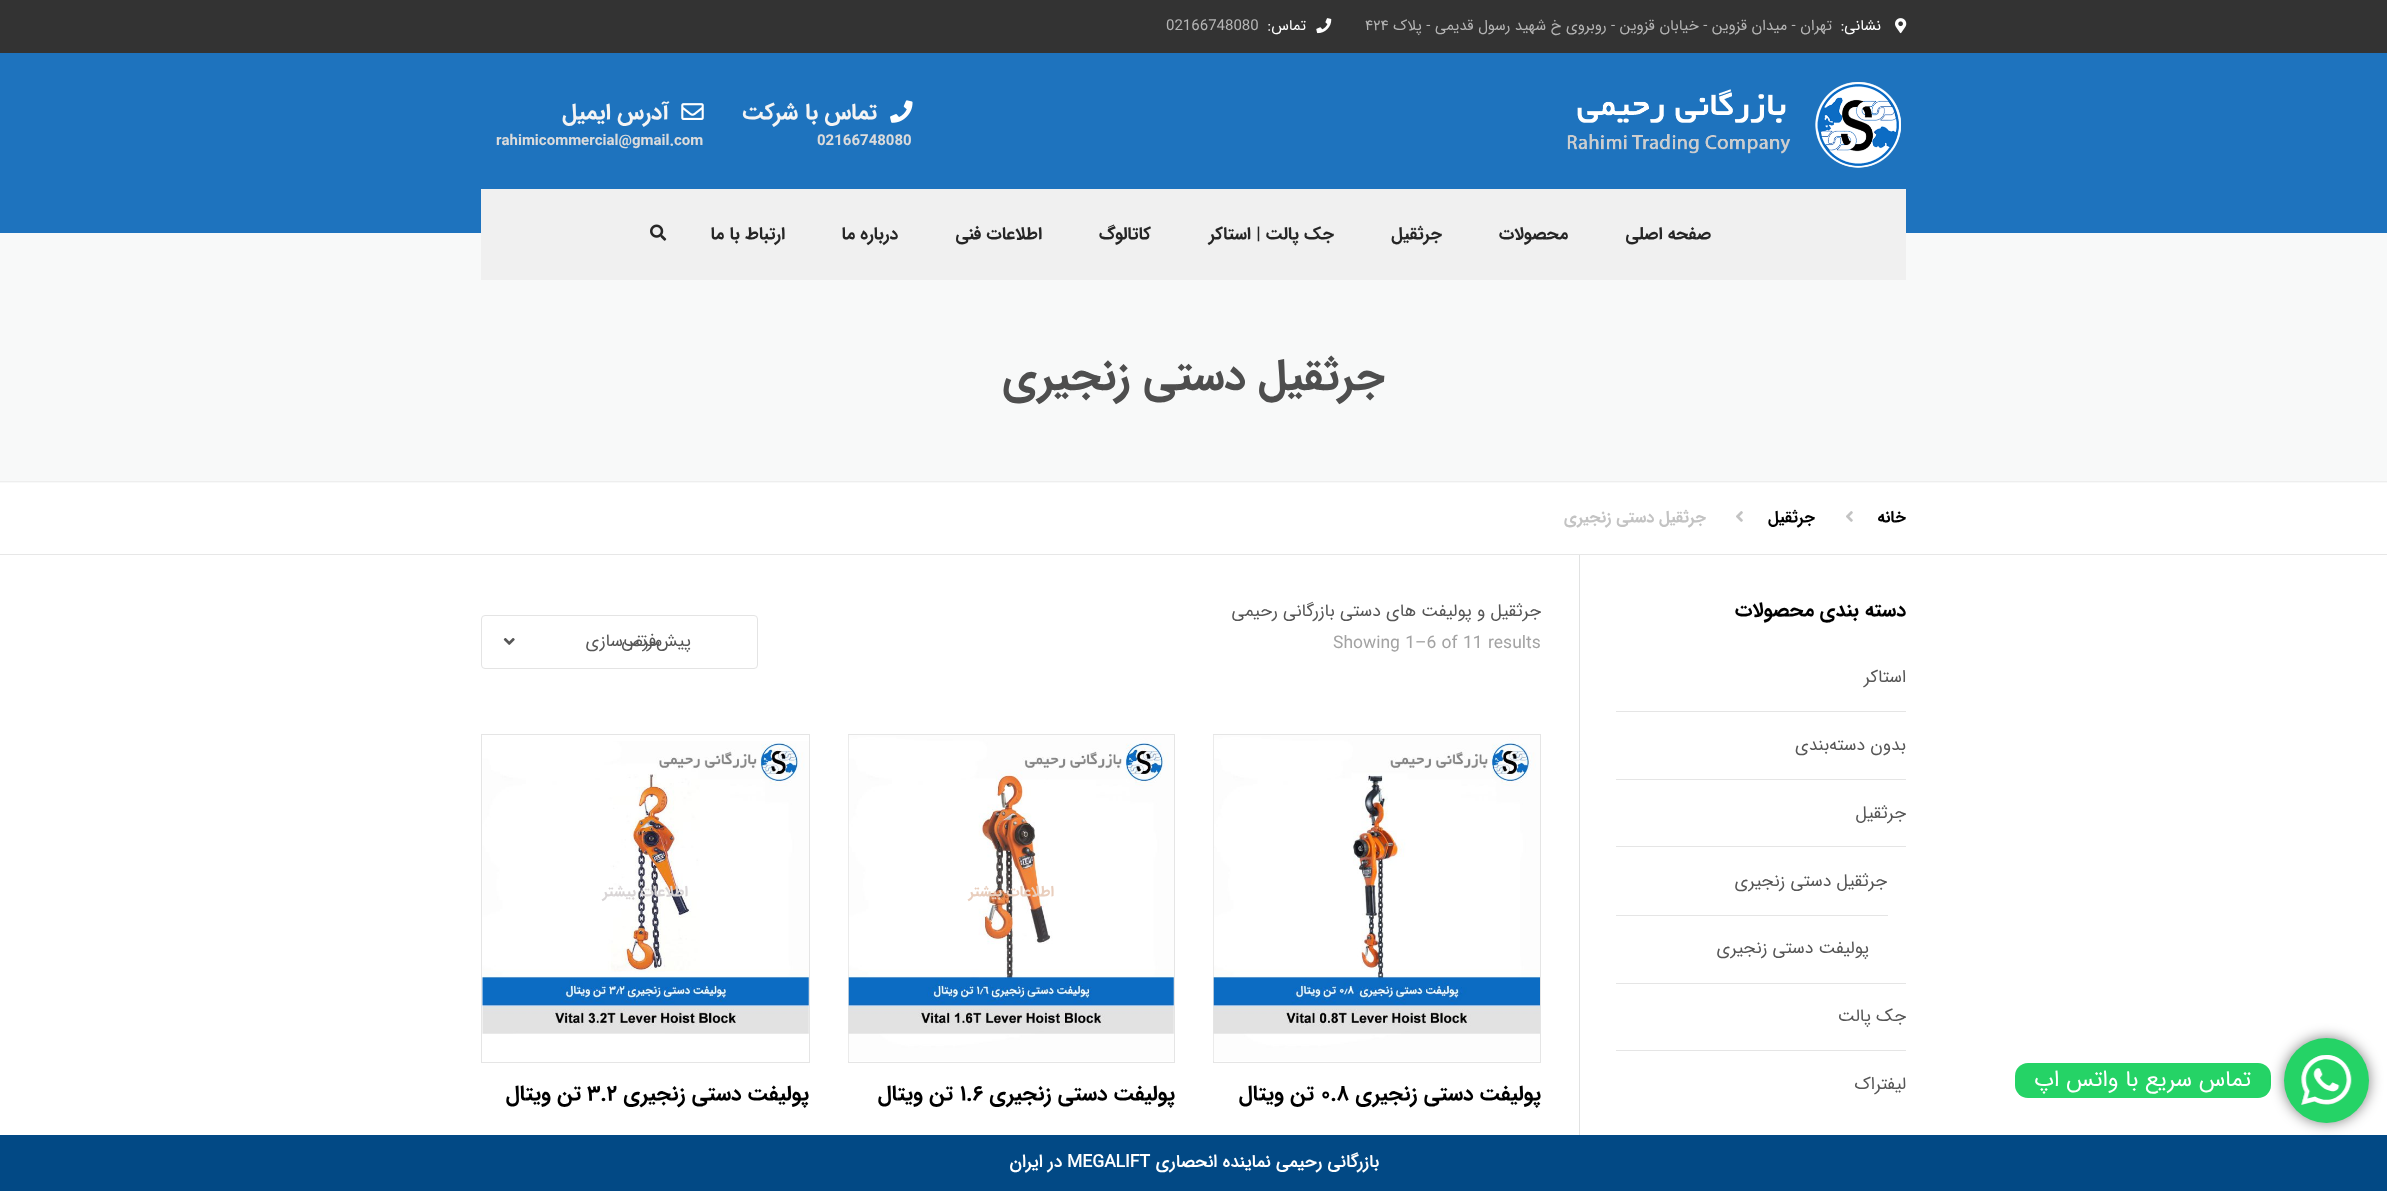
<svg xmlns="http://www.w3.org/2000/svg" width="2387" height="1191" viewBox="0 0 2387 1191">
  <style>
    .t1 { font: 22.5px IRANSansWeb; direction: rtl; fill: #fff; }
    .t2 { font: 15px IRANSansWeb; direction: rtl; fill: #fff; }
    .t3 { font: 15px IRANSansWeb; direction: rtl; fill: #b5b5b5; }
    .t4 { font: 15px IRANSansWeb; fill: #b5b5b5; }
    .t5 { font: bold 22.5px IRANSansWeb; direction: rtl; fill: #f4f4f4; }
    .t6 { font: bold 15px IRANSansWeb; fill: #dbdbdb; }
    .t7 { font: bold 17.5px IRANSansWeb; direction: rtl; fill: #262626; }
    .t8 { font: bold 43.75px IRANSansWeb; direction: rtl; fill: #4e4e4e; }
    .t9 { font: bold 16.25px IRANSansWeb; direction: rtl; fill: #000; }
    .t10 { font: bold 16.25px IRANSansWeb; direction: rtl; fill: #c3c3c3; }
    .t11 { font: bold 20px IRANSansWeb; direction: rtl; fill: #000; }
    .t12 { font: 17.5px IRANSansWeb; direction: rtl; fill: #565656; }
    .t13 { font: 17.5px IRANSansWeb; fill: #a3a3a3; }
    .t14 { font: bold 21.25px IRANSansWeb; direction: rtl; fill: #000; }
    .t15 { font: bold 21.25px IRANSansWeb; fill: #000; }
    .t16 { font: bold 15px IRANSansWeb; direction: rtl; fill: #e9cebd; }
    .t17 { font: bold 15px IRANSansWeb; direction: rtl; fill: #d9d5d6; }
    .t18 { font: bold 17.5px 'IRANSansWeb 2'; direction: rtl; fill: #fff; }
    .t19 { font: bold 17.5px 'IRANSansWeb 2'; fill: #fff; }
  </style>
  <rect width="100%" height="100%" fill="#fff"/>
  <rect x="2015" y="1063" width="256" height="35" rx="13" fill="#25d366"/>
  <rect x="0" y="1135" width="2387" height="56" fill="#024985"/>
  <rect x="2284" y="1038" width="85" height="85" rx="42.5" fill="#00000080" filter="blur(7px)"/>
  <circle cx="2326.5" cy="1080.5" r="42.5" fill="#25d366"/>
  <image x="2301" y="1055" width="51" height="50" href="images/1.png"/>
  <text x="2251" y="1086" class="t1">تماس سریع با واتس اپ</text>
  <rect x="0" y="0" width="2387" height="53" fill="#333"/>
  <image x="1895" y="18" width="12" height="16" href="images/2.png"/>
  <text x="1881" y="30" class="t2">نشانی:</text>
  <text x="1832" y="30" class="t3">تهران - میدان قزوین - خیابان قزوین - روبروی خ شهید رسول قدیمی - پلاک</text>
  <text x="1365" y="30" class="t4">۴۲۴</text>
  <image x="1316" y="18" width="16" height="16" href="images/3.png"/>
  <text x="1306" y="30" class="t2">تماس:</text>
  <text x="1166" y="30" class="t4">02166748080</text>
  <rect x="0" y="53" width="2387" height="180" fill="#1e73be"/>
  <image x="1567" y="82" width="334" height="86" href="images/4.png"/>
  <image x="890" y="100" width="23" height="23" href="images/5.png"/>
  <text x="877" y="119" class="t5">تماس با شرکت</text>
  <text x="817" y="145" class="t6">02166748080</text>
  <image x="681" y="103" width="23" height="17" href="images/6.png"/>
  <text x="669" y="119" class="t5">آدرس ایمیل</text>
  <text x="496" y="145" class="t6">rahimicommercial@gmail.com</text>
  <rect x="0" y="233" width="2387" height="250" fill="#f8f9f9"/>
  <rect x="481" y="189" width="1425" height="91" fill="#f0f0f0"/>
  <text x="1711" y="239" class="t7">صفحه اصلی</text>
  <text x="1568" y="239" class="t7">محصولات</text>
  <text x="1442" y="239" class="t7">جرثقیل</text>
  <text x="1334" y="239" class="t7">جک پالت | استاکر</text>
  <text x="1151" y="239" class="t7">کاتالوگ</text>
  <text x="1042" y="239" class="t7">اطلاعات فنی</text>
  <text x="898" y="239" class="t7">درباره ما</text>
  <text x="785" y="239" class="t7">ارتباط با ما</text>
  <image x="650" y="224" width="17" height="17" href="images/7.png"/>
  <rect x="0" y="481" width="2387" height="1" fill="#eee"/>
  <text x="1385" y="389" class="t8">جرثقیل دستی زنجیری</text>
  <rect x="0" y="554" width="2387" height="1" fill="#e7e7e7"/>
  <text x="1906" y="522" class="t9">خانه</text>
  <image x="1846" y="511" width="7" height="11" href="images/8.png"/>
  <text x="1815" y="522" class="t9">جرثقیل</text>
  <image x="1736" y="511" width="7" height="11" href="images/9.png"/>
  <text x="1706" y="522" class="t10">جرثقیل دستی زنجیری</text>
  <text x="1906" y="616" class="t11">دسته‌ بندی محصولات</text>
  <rect x="1616" y="711" width="290" height="1" fill="#e5e5e5"/>
  <text x="1906" y="682" class="t12">استاکر</text>
  <rect x="1616" y="779" width="290" height="1" fill="#e5e5e5"/>
  <text x="1906" y="750" class="t12">بدون دسته‌بندی</text>
  <rect x="1616" y="983" width="290" height="1" fill="#e5e5e5"/>
  <text x="1906" y="818" class="t12">جرثقیل</text>
  <rect x="1616" y="846" width="290" height="1" fill="#e5e5e5"/>
  <text x="1887" y="886" class="t12">جرثقیل دستی زنجیری</text>
  <rect x="1616" y="915" width="272" height="1" fill="#e5e5e5"/>
  <text x="1869" y="953" class="t12">پولیفت دستی زنجیری</text>
  <rect x="1616" y="1050" width="290" height="1" fill="#e5e5e5"/>
  <text x="1906" y="1021" class="t12">جک پالت</text>
  <text x="1906" y="1089" class="t12">لیفتراک</text>
  <rect x="1579" y="555" width="1" height="580" fill="#e1e2e2"/>
  <text x="1541" y="616" class="t12">جرثقیل و پولیفت های دستی بازرگانی رحیمی</text>
  <text x="1333" y="648" class="t13">Showing 1–6 of 11 results</text>
  <image x="503" y="638" width="12" height="7" href="images/10.png"/>
  <rect x="481.5" y="615.5" width="276" height="53" rx="3.5" fill="none" stroke="#e4e4e4"/>
  <text x="662" y="646" class="t12">مرتب‌سازی</text>
  <text x="691" y="646" class="t12">پیش‌فرض</text>
  <rect x="1213.5" y="734.5" width="327" height="328" fill="none" stroke="#e5e5e5"/>
  <image x="1213" y="735" width="327" height="326" href="images/11.png"/>
  <text x="1541" y="1100" class="t14">پولیفت دستی زنجیری</text>
  <text x="1321" y="1100" class="t15">۰.۸</text>
  <text x="1314" y="1100" class="t14">تن ویتال</text>
  <rect x="848.5" y="734.5" width="326" height="328" fill="none" stroke="#e5e5e5"/>
  <image x="848" y="735" width="326" height="326" href="images/12.png"/>
  <text x="1054" y="896" class="t16">اطلاعات بیشتر</text>
  <text x="1175" y="1100" class="t14">پولیفت دستی زنجیری</text>
  <text x="960" y="1100" class="t15">۱.۶</text>
  <text x="953" y="1100" class="t14">تن ویتال</text>
  <rect x="481.5" y="734.5" width="328" height="328" fill="none" stroke="#e5e5e5"/>
  <image x="482" y="741" width="327" height="293" href="images/13.png"/>
  <text x="688" y="896" class="t17">اطلاعات بیشتر</text>
  <text x="809" y="1100" class="t14">پولیفت دستی زنجیری</text>
  <text x="587" y="1100" class="t15">۳.۲</text>
  <text x="581" y="1100" class="t14">تن ویتال</text>
  <text x="1379" y="1167" class="t18">بازرگانی رحیمی نماینده انحصاری</text>
  <text x="1067" y="1167" class="t19">MEGALIFT</text>
  <text x="1062" y="1167" class="t18">در ایران</text>
</svg>
